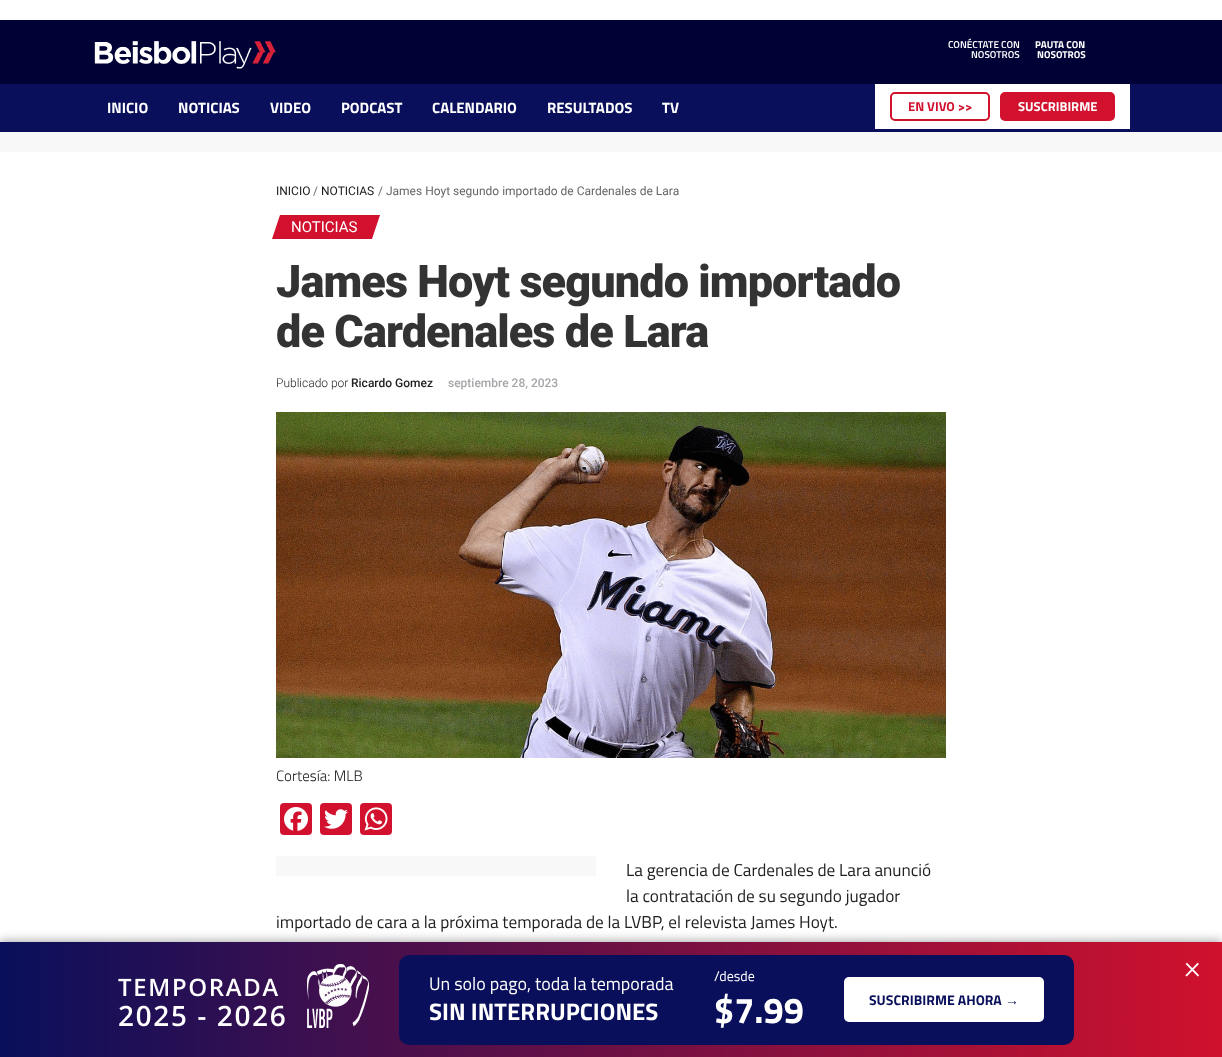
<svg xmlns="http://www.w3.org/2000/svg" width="1222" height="1057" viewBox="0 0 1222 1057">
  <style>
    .t1 { font: 600 10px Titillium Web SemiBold; fill: #fff; }
    .t2 { font: bold 10px Titillium Web; fill: #fff; }
    .t3 { font: bold 15px Titillium Web; fill: #fff; }
    .t4 { font: bold 13px Titillium Web; fill: #d1112d; }
    .t5 { font: bold 13px Titillium Web; fill: #fff; }
    .t6 { font: 12px Roboto; fill: #1a1a1a; }
    .t7 { font: 12px Roboto; fill: #666; }
    .t8 { font: 15px Roboto; fill: #fff; }
    .t9 { font: 900 45px Roboto; letter-spacing: -0.9px; fill: #333; }
    .t10 { font: 300 12px Roboto; fill: #212121; }
    .t11 { font: 500 12px Roboto; fill: #212121; }
    .t12 { font: 500 12px Roboto; fill: #a5a6aa; }
    .t13 { font: 300 15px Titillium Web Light; fill: #212121; }
    .t14 { font: 17.25px Titillium Web; fill: #212121; }
    .t15 { font: 18px Titillium Web; fill: #fff; }
    .t16 { font: bold 24px Titillium Web; fill: #fff; }
    .t17 { font: 14px Titillium Web; fill: #fff; }
    .t18 { font: bold 36px Titillium Web; fill: #fff; }
    .t19 { font: bold 14px Titillium Web; fill: #090f5b; }
    .t20 { font: bold 14px Liberation Sans; fill: #090f5b; }
    .t21 { font: 300 32px Roboto; fill: #fff; }
  </style>
  <defs>
    <linearGradient id="g1" gradientUnits="userSpaceOnUse" x1="0" y1="1000" x2="1222" y2="1000"><stop offset="0" stop-color="#090f5b"/><stop offset="1" stop-color="#d0112d"/></linearGradient>
  </defs>
  <rect width="100%" height="100%" fill="#fff"/>
  <rect x="0" y="20" width="1222" height="64" fill="#000236"/>
  <image x="94" y="41" width="182" height="28" href="images/1.png"/>
  <text x="948" y="48" class="t1">CONÉCTATE CON</text>
  <text x="971" y="58" class="t1">NOSOTROS</text>
  <text x="1035" y="48" class="t2">PAUTA CON</text>
  <text x="1037" y="58" class="t2">NOSOTROS</text>
  <rect x="0" y="84" width="1222" height="48" fill="#090f5b"/>
  <text x="107" y="113" class="t3">INICIO</text>
  <text x="178" y="113" class="t3">NOTICIAS</text>
  <text x="270" y="113" class="t3">VIDEO</text>
  <text x="341" y="113" class="t3">PODCAST</text>
  <text x="432" y="113" class="t3">CALENDARIO</text>
  <text x="547" y="113" class="t3">RESULTADOS</text>
  <text x="662" y="113" class="t3">TV</text>
  <rect x="875" y="84" width="255" height="45" fill="#fff"/>
  <rect x="891" y="93" width="98" height="27" rx="4" fill="none" stroke="#d1112d" stroke-width="2"/>
  <text x="908" y="111" class="t4">EN VIVO &gt;&gt;</text>
  <rect x="1001" y="93" width="113" height="27" rx="4" fill="#d1112d" stroke="#d1112d" stroke-width="2"/>
  <text x="1018" y="111" class="t5">SUSCRIBIRME</text>
  <rect x="0" y="132" width="1222" height="20" fill="#f8f8f8"/>
  <text x="276" y="195" class="t6">INICIO</text>
  <text x="313" y="195" class="t7">/</text>
  <text x="321" y="195" class="t6">NOTICIAS</text>
  <text x="378" y="195" class="t7">/ James Hoyt segundo importado de Cardenales de Lara</text>
  <path d="M280 215H380L372 239H272Z" fill="#d1112d"/>
  <text x="291" y="232" class="t8">NOTICIAS</text>
  <text x="276" y="297" class="t9">James Hoyt segundo importado</text>
  <text x="276" y="347" class="t9">de Cardenales de Lara</text>
  <text x="276" y="387" class="t10">Publicado por</text>
  <text x="351" y="387" class="t11">Ricardo Gomez</text>
  <text x="448" y="387" class="t12">septiembre 28, 2023</text>
  <image x="276" y="412" width="670" height="346" href="images/2.png"/>
  <text x="276" y="781" class="t13">Cortesía: MLB</text>
  <rect x="280" y="803" width="32" height="32" rx="4" fill="#d1112d"/>
  <image x="284" y="807" width="24" height="24" href="images/3.png"/>
  <rect x="320" y="803" width="32" height="32" rx="4" fill="#d1112d"/>
  <image x="324" y="809" width="24" height="20" href="images/4.png"/>
  <rect x="360" y="803" width="32" height="32" rx="4" fill="#d1112d"/>
  <image x="364" y="807" width="24" height="24" href="images/5.png"/>
  <rect x="276" y="856" width="320" height="20" fill="#f8f8f8"/>
  <text x="626" y="876" class="t14">La gerencia de Cardenales de Lara anunció</text>
  <text x="626" y="902" class="t14">la contratación de su segundo jugador</text>
  <text x="276" y="928" class="t14">importado de cara a la próxima temporada de la LVBP, el relevista James Hoyt.</text>
  <rect x="0" y="940" width="1222" height="115" fill="#0000004d" filter="blur(5px)"/>
  <rect x="0" y="942" width="1222" height="115" fill="url(#g1)"/>
  <image x="118" y="964" width="251" height="64" href="images/6.png"/>
  <rect x="399" y="955" width="675" height="90" rx="10" fill="#090f5b"/>
  <text x="429" y="990" class="t15">Un solo pago, toda la temporada</text>
  <text x="429" y="1020" class="t16">SIN INTERRUPCIONES</text>
  <text x="714" y="981" class="t17">/desde</text>
  <text x="714" y="1023" class="t18">$7.99</text>
  <rect x="844" y="977" width="200" height="45" rx="5" fill="#fff"/>
  <text x="869" y="1005" class="t19">SUSCRIBIRME AHORA</text>
  <text x="1005" y="1005" class="t20">→</text>
  <text x="1184" y="978" class="t21">×</text>
</svg>
